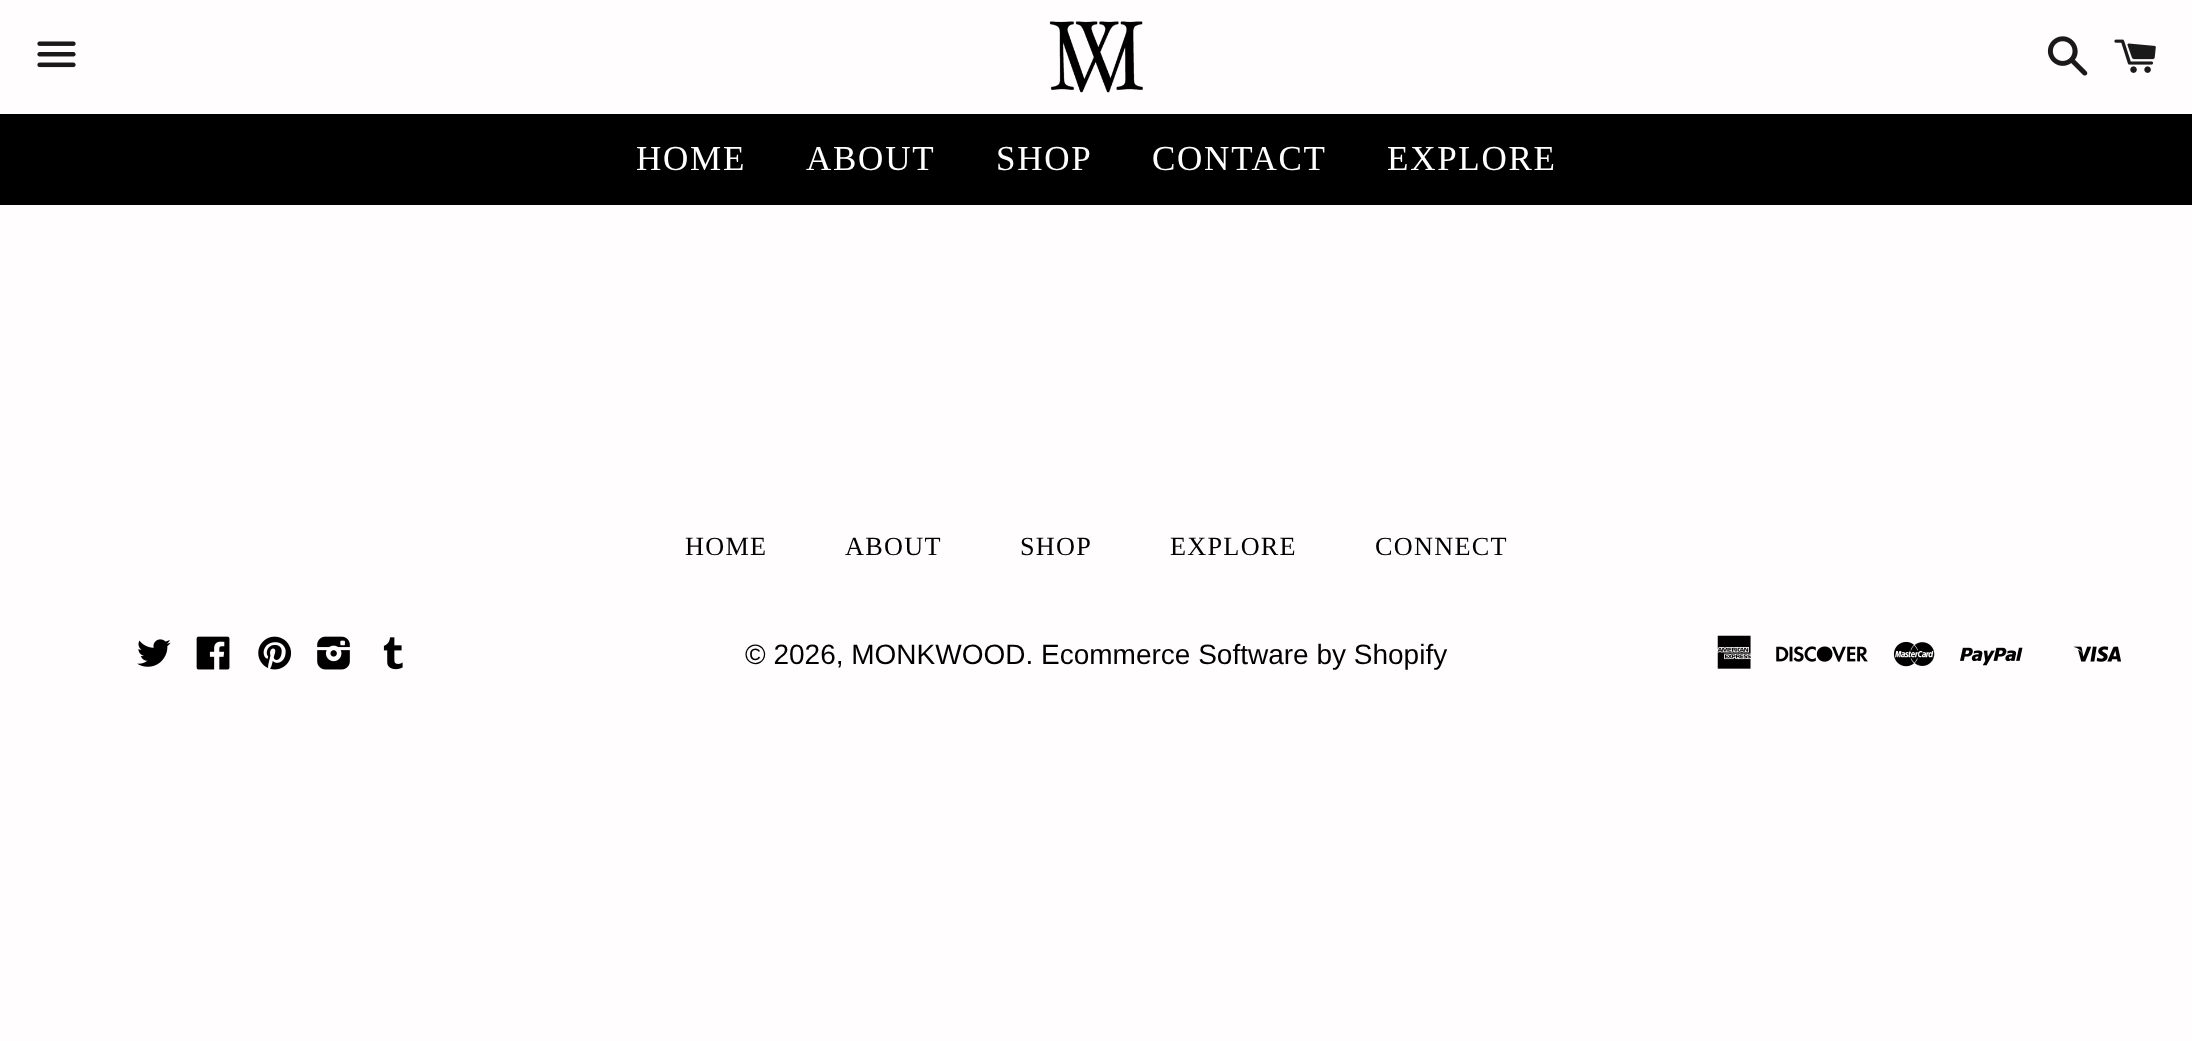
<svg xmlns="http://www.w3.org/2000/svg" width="2192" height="1041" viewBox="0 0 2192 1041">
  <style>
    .t1 { font: 35px Liberation Serif; letter-spacing: 1.75px; fill: #fff; }
    .t2 { font: 26.25px Liberation Serif; letter-spacing: 1.25px; fill: #000; }
    .t3 { font: 28px Liberation Sans; fill: #000; }
  </style>
  <rect width="100%" height="100%" fill="#fffdfd"/>
  <image x="37" y="41" width="39" height="27" href="images/1.png"/>
  <image x="1049" y="21" width="94" height="72" href="images/2.png"/>
  <image x="2047" y="36" width="41" height="40" href="images/3.png"/>
  <image x="2114" y="39" width="42" height="34" href="images/4.png"/>
  <rect x="0" y="114" width="2192" height="91" fill="#000"/>
  <text x="636" y="170" class="t1">HOME</text>
  <text x="806" y="170" class="t1">ABOUT</text>
  <text x="996" y="170" class="t1">SHOP</text>
  <text x="1152" y="170" class="t1">CONTACT</text>
  <text x="1387" y="170" class="t1">EXPLORE</text>
  <text x="685" y="555" class="t2">HOME</text>
  <text x="845" y="555" class="t2">ABOUT</text>
  <text x="1020" y="555" class="t2">SHOP</text>
  <text x="1170" y="555" class="t2">EXPLORE</text>
  <text x="1375" y="555" class="t2">CONNECT</text>
  <image x="137" y="639" width="34" height="28" href="images/5.png"/>
  <image x="196" y="636" width="34" height="34" href="images/6.png"/>
  <image x="258" y="636" width="34" height="34" href="images/7.png"/>
  <image x="317" y="636" width="33" height="34" href="images/8.png"/>
  <image x="383" y="637" width="20" height="33" href="images/9.png"/>
  <text x="745" y="664" class="t3">© 2026, MONKWOOD. Ecommerce Software by Shopify</text>
  <image x="1717" y="635" width="34" height="34" href="images/10.png"/>
  <image x="1776" y="646" width="92" height="16" href="images/11.png"/>
  <image x="1893" y="641" width="42" height="26" href="images/12.png"/>
  <image x="1960" y="647" width="63" height="19" href="images/13.png"/>
  <image x="2073" y="646" width="48" height="16" href="images/14.png"/>
</svg>
